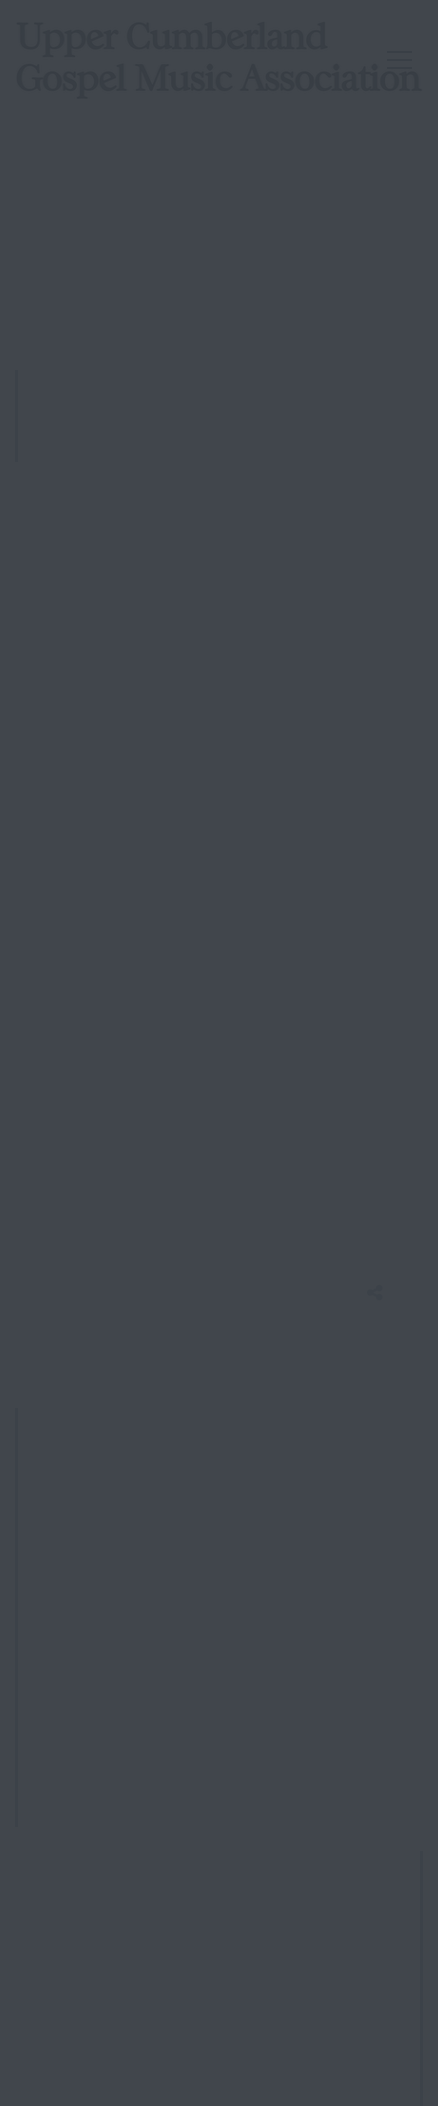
<svg xmlns="http://www.w3.org/2000/svg" width="438" height="2106" viewBox="0 0 438 2106">
  <rect width="100%" height="100%" fill="#41464c"/>
  <image x="16" y="21" width="407" height="78" href="images/1.png"/>
  <rect x="387" y="59" width="25" height="2" fill="#393f46"/>
  <rect x="387" y="51" width="25" height="2" fill="#393f46"/>
  <rect x="387" y="67" width="25" height="2" fill="#393f46"/>
  <rect x="15" y="370" width="3" height="92" fill="#3c4249"/>
  <image x="367" y="1284" width="16" height="17" href="images/2.png"/>
  <rect x="15" y="1408" width="3" height="419" fill="#3c4249"/>
  <rect x="420" y="1851" width="3" height="255" fill="#3c4249"/>
</svg>
